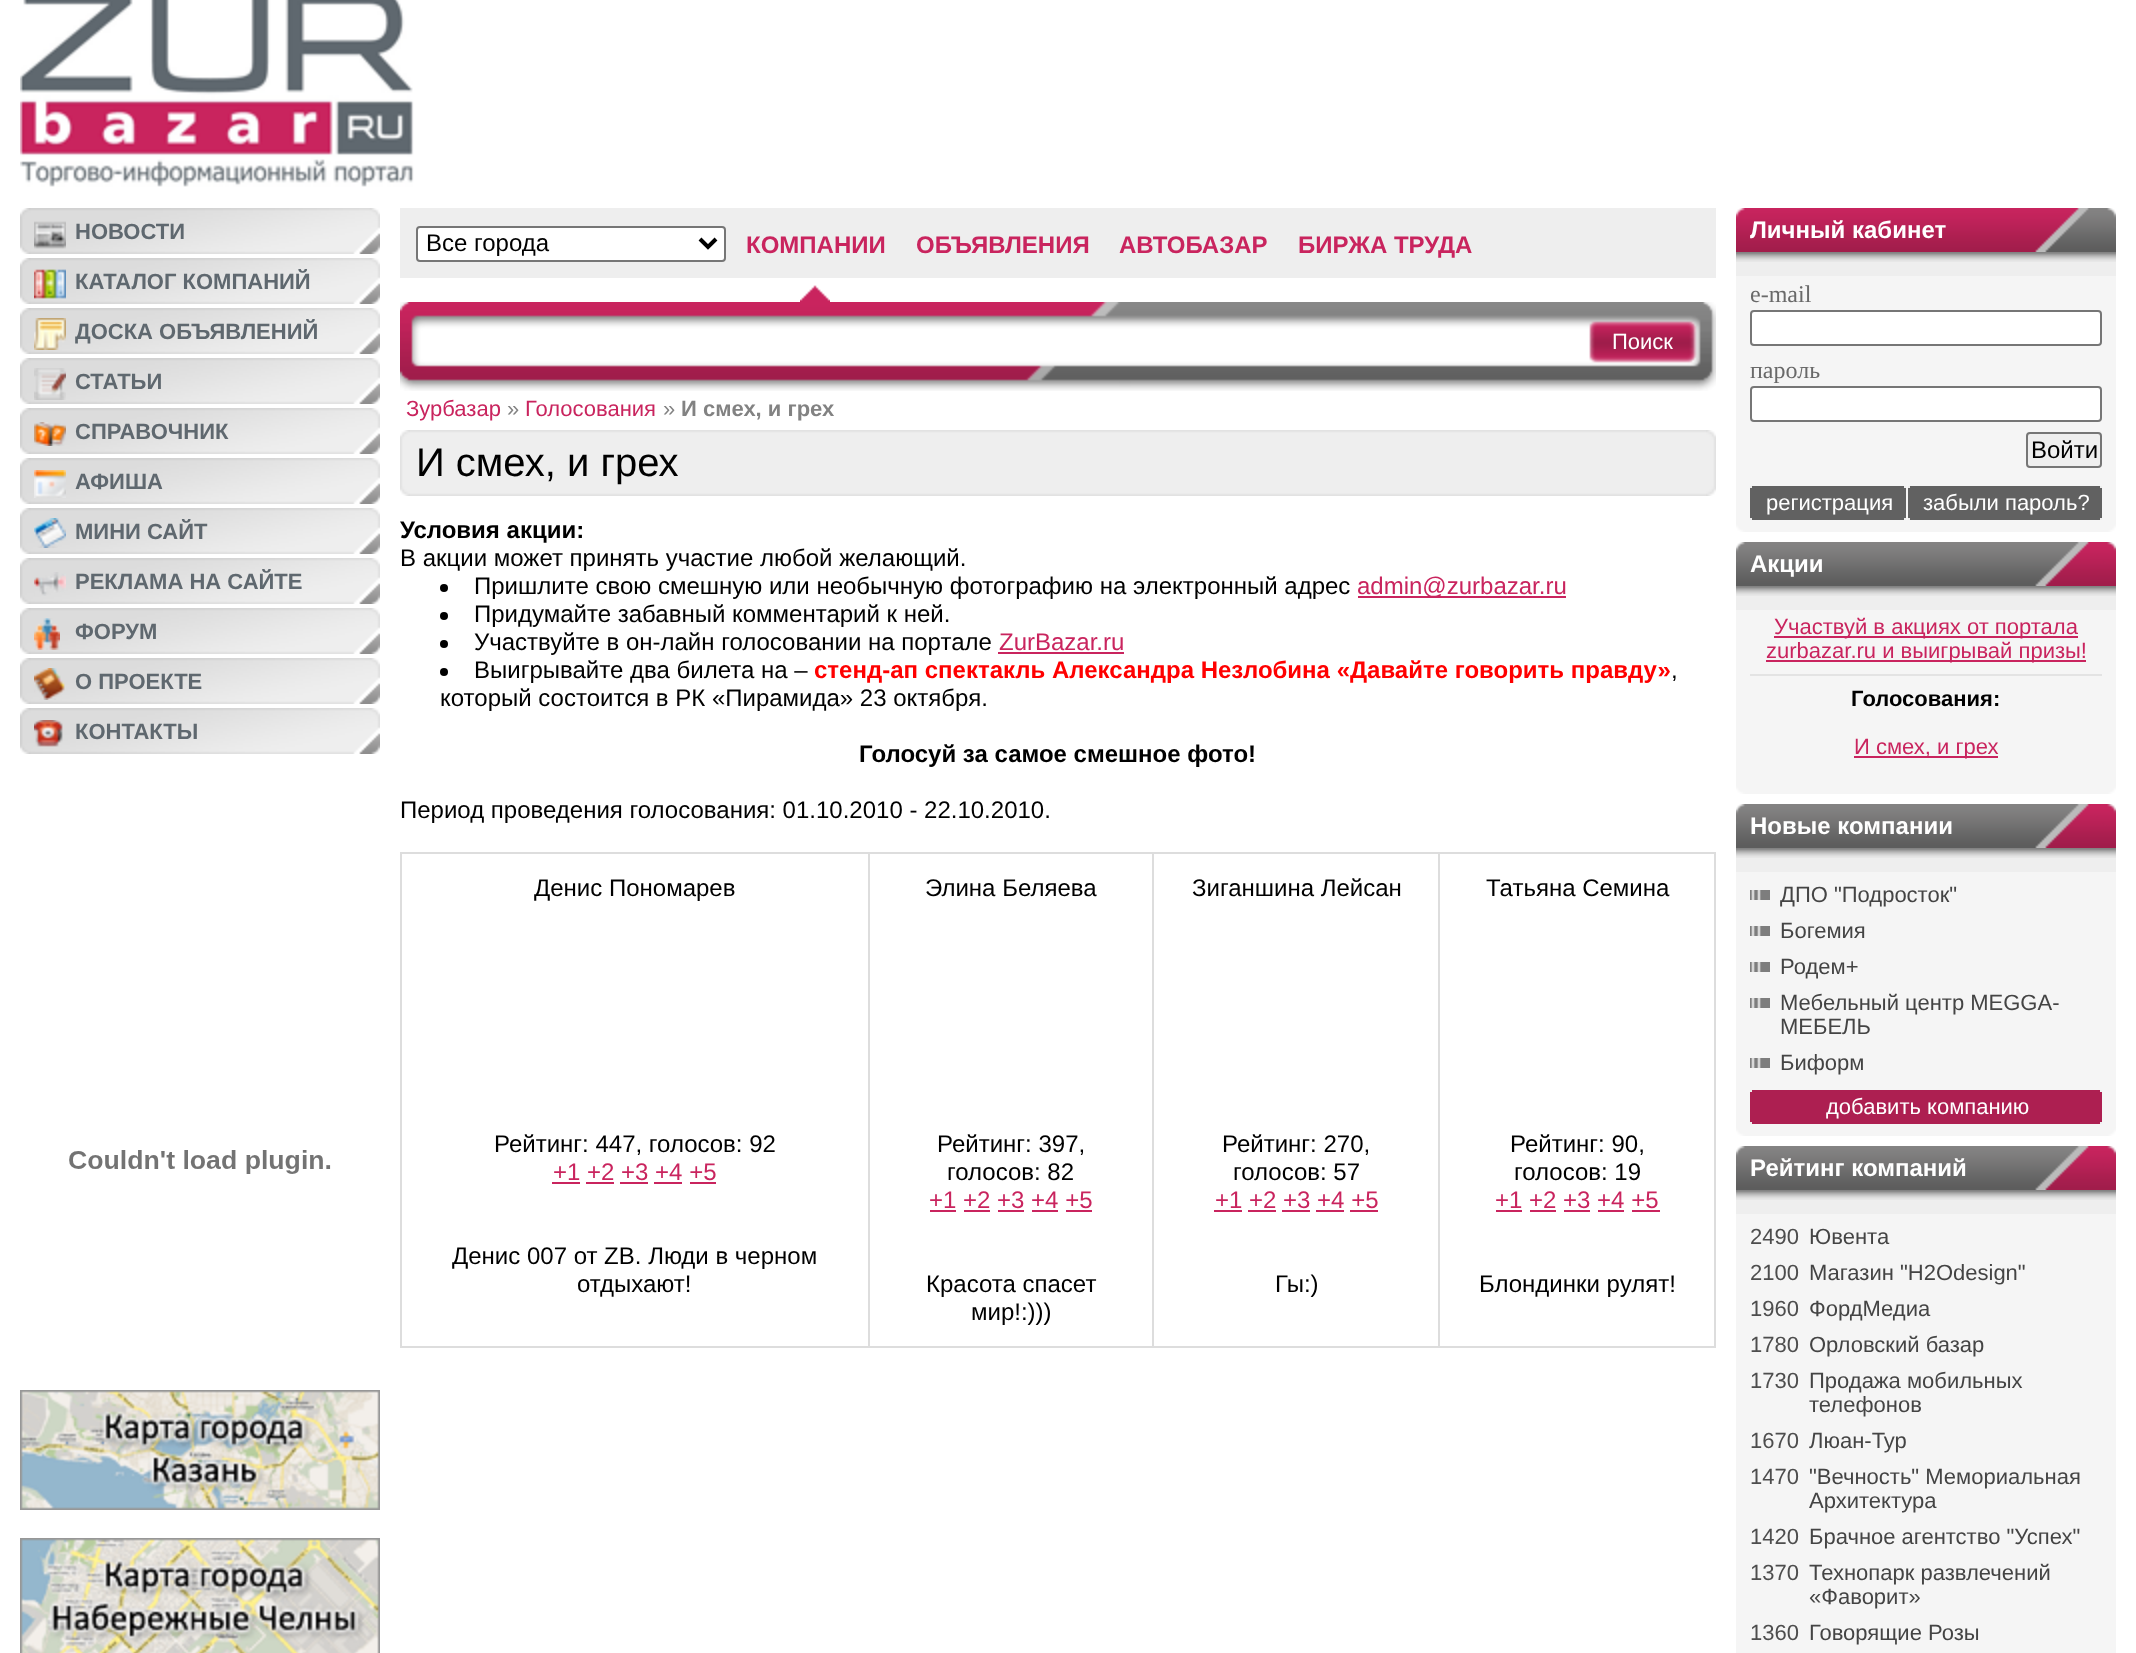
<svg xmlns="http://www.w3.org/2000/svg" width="2136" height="1653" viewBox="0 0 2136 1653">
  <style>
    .t1 { font: bold 22px Liberation Sans; fill: #5f686f; }
    .t2 { font: 24px Liberation Sans; fill: #000; }
    .t3 { font: bold 24px Liberation Sans; fill: #c9245e; }
    .t4 { font: 22px Liberation Sans; fill: #fff; }
    .t5 { font: 22px Liberation Sans; fill: #c9245e; }
    .t6 { font: 22px Liberation Sans; fill: #828282; }
    .t7 { font: bold 22px Liberation Sans; fill: #828282; }
    .t8 { font: 40px Liberation Sans; fill: #000; }
    .t9 { font: bold 24px Liberation Sans; fill: #000; }
    .t10 { font: 24px Liberation Sans; fill: #c9245e; }
    .t11 { font: bold 24px Liberation Sans; fill: #f00; }
    .t12 { font: bold 24px Liberation Sans; fill: #fff; }
    .t13 { font: 24px Liberation Serif; fill: #696969; }
    .t14 { font: bold 22px Liberation Sans; fill: #000; }
    .t15 { font: 22px Liberation Sans; fill: #444; }
    .t16 { font: 22px Liberation Sans; fill: #4d4d4d; }
  </style>
  <rect width="100%" height="100%" fill="#fff"/>
  <image x="20" y="0" width="394" height="187" href="images/1.png"/>
  <image x="20" y="208" width="56" height="46" href="images/2.png"/>
  <image x="34" y="221" width="32" height="28" href="images/3.png"/>
  <image x="76" y="208" width="304" height="46" href="images/4.png"/>
  <text x="75" y="239" class="t1">НОВОСТИ</text>
  <image x="20" y="258" width="56" height="46" href="images/2.png"/>
  <image x="34" y="269" width="32" height="30" href="images/5.png"/>
  <image x="76" y="258" width="304" height="46" href="images/4.png"/>
  <text x="75" y="289" class="t1">КАТАЛОГ КОМПАНИЙ</text>
  <image x="20" y="308" width="56" height="46" href="images/2.png"/>
  <image x="34" y="318" width="32" height="32" href="images/6.png"/>
  <image x="76" y="308" width="304" height="46" href="images/4.png"/>
  <text x="75" y="339" class="t1">ДОСКА ОБЪЯВЛЕНИЙ</text>
  <image x="20" y="358" width="56" height="46" href="images/2.png"/>
  <image x="34" y="368" width="32" height="32" href="images/7.png"/>
  <image x="76" y="358" width="304" height="46" href="images/4.png"/>
  <text x="75" y="389" class="t1">СТАТЬИ</text>
  <image x="20" y="408" width="56" height="46" href="images/2.png"/>
  <image x="34" y="422" width="32" height="24" href="images/8.png"/>
  <image x="76" y="408" width="304" height="46" href="images/4.png"/>
  <text x="75" y="439" class="t1">СПРАВОЧНИК</text>
  <image x="20" y="458" width="56" height="46" href="images/2.png"/>
  <image x="34" y="470" width="32" height="28" href="images/9.png"/>
  <image x="76" y="458" width="304" height="46" href="images/4.png"/>
  <text x="75" y="489" class="t1">АФИША</text>
  <image x="20" y="508" width="56" height="46" href="images/2.png"/>
  <image x="34" y="518" width="32" height="30" href="images/10.png"/>
  <image x="76" y="508" width="304" height="46" href="images/4.png"/>
  <text x="75" y="539" class="t1">МИНИ САЙТ</text>
  <image x="20" y="558" width="56" height="46" href="images/2.png"/>
  <image x="34" y="572" width="32" height="24" href="images/11.png"/>
  <image x="76" y="558" width="304" height="46" href="images/4.png"/>
  <text x="75" y="589" class="t1">РЕКЛАМА НА САЙТЕ</text>
  <image x="20" y="608" width="56" height="46" href="images/2.png"/>
  <image x="34" y="618" width="26" height="32" href="images/12.png"/>
  <image x="76" y="608" width="304" height="46" href="images/4.png"/>
  <text x="75" y="639" class="t1">ФОРУМ</text>
  <image x="20" y="658" width="56" height="46" href="images/2.png"/>
  <image x="34" y="668" width="31" height="32" href="images/13.png"/>
  <image x="76" y="658" width="304" height="46" href="images/4.png"/>
  <text x="75" y="689" class="t1">О ПРОЕКТЕ</text>
  <image x="20" y="708" width="56" height="46" href="images/2.png"/>
  <image x="34" y="720" width="29" height="27" href="images/14.png"/>
  <image x="76" y="708" width="304" height="46" href="images/4.png"/>
  <text x="75" y="739" class="t1">КОНТАКТЫ</text>
  <image x="69" y="1150" width="262" height="24" href="images/15.png"/>
  <image x="20" y="1390" width="360" height="120" href="images/16.png"/>
  <image x="20" y="1538" width="360" height="115" href="images/17.png"/>
  <rect x="400" y="208" width="1316" height="70" fill="#eee"/>
  <rect x="417" y="227" width="308" height="34" rx="3" fill="#fff" stroke="#767676" stroke-width="2"/>
  <path d="M700 239L708 247L716 239" fill="none" stroke="#000" stroke-width="4"/>
  <text x="426" y="251" class="t2">Все города</text>
  <text x="746" y="253" class="t3">КОМПАНИИ</text>
  <text x="916" y="253" class="t3">ОБЪЯВЛЕНИЯ</text>
  <text x="1119" y="253" class="t3">АВТОБАЗАР</text>
  <text x="1298" y="253" class="t3">БИРЖА ТРУДА</text>
  <image x="800" y="285" width="30" height="17" href="images/18.png"/>
  <image x="400" y="302" width="26" height="89" href="images/19.png"/>
  <image x="426" y="302" width="1142" height="89" href="images/20.png"/>
  <image x="1568" y="302" width="148" height="89" href="images/21.png"/>
  <text x="1612" y="349" class="t4">Поиск</text>
  <text x="406" y="416" class="t5">Зурбазар</text>
  <text x="507" y="416" class="t6">»</text>
  <text x="525" y="416" class="t5">Голосования</text>
  <text x="663" y="416" class="t6">»</text>
  <text x="681" y="416" class="t7">И смех, и грех</text>
  <image x="400" y="430" width="10" height="10" href="images/22.png"/>
  <image x="410" y="430" width="1296" height="10" href="images/23.png"/>
  <image x="1706" y="430" width="10" height="10" href="images/24.png"/>
  <image x="400" y="440" width="10" height="46" href="images/25.png"/>
  <rect x="410" y="440" width="1296" height="46" fill="#eee"/>
  <text x="416" y="476" class="t8">И смех, и грех</text>
  <image x="1706" y="440" width="10" height="46" href="images/26.png"/>
  <image x="400" y="486" width="10" height="10" href="images/27.png"/>
  <image x="410" y="486" width="1296" height="10" href="images/28.png"/>
  <image x="1706" y="486" width="10" height="10" href="images/29.png"/>
  <text x="400" y="538" class="t9">Условия акции:</text>
  <text x="400" y="566" class="t2">В акции может принять участие любой желающий.</text>
  <circle cx="444" cy="588" r="4" fill="#000"/>
  <text x="474" y="594" class="t2">Пришлите свою смешную или необычную фотографию на электронный адрес</text>
  <rect x="1358" y="596" width="208" height="2" fill="#c9245e"/>
  <text x="1357" y="594" class="t10">admin@zurbazar.ru</text>
  <circle cx="444" cy="616" r="4" fill="#000"/>
  <text x="474" y="622" class="t2">Придумайте забавный комментарий к ней.</text>
  <circle cx="444" cy="644" r="4" fill="#000"/>
  <text x="474" y="650" class="t2">Участвуйте в он-лайн голосовании на портале</text>
  <text x="999" y="650" class="t10">ZurBazar.ru</text>
  <rect x="998" y="652" width="126" height="2" fill="#c9245e"/>
  <circle cx="444" cy="672" r="4" fill="#000"/>
  <text x="474" y="678" class="t2">Выигрывайте два билета на –</text>
  <text x="814" y="678" class="t11">стенд-ап спектакль Александра Незлобина «Давайте говорить правду»</text>
  <text x="1671" y="678" class="t2">,</text>
  <text x="440" y="706" class="t2">который состоится в РК «Пирамида» 23 октября.</text>
  <text x="859" y="762" class="t9">Голосуй за самое смешное фото!</text>
  <text x="400" y="818" class="t2">Период проведения голосования: 01.10.2010 - 22.10.2010.</text>
  <rect x="1438" y="852" width="278" height="2" fill="#ddd"/>
  <rect x="1714" y="852" width="2" height="496" fill="#ddd"/>
  <rect x="1438" y="1346" width="278" height="2" fill="#ddd"/>
  <rect x="1438" y="852" width="2" height="496" fill="#ddd"/>
  <rect x="1152" y="852" width="288" height="2" fill="#ddd"/>
  <rect x="1152" y="1346" width="288" height="2" fill="#ddd"/>
  <rect x="1152" y="852" width="2" height="496" fill="#ddd"/>
  <rect x="868" y="852" width="286" height="2" fill="#ddd"/>
  <rect x="868" y="1346" width="286" height="2" fill="#ddd"/>
  <rect x="868" y="852" width="2" height="496" fill="#ddd"/>
  <rect x="400" y="852" width="470" height="2" fill="#ddd"/>
  <rect x="400" y="1346" width="470" height="2" fill="#ddd"/>
  <rect x="400" y="852" width="2" height="496" fill="#ddd"/>
  <text x="534" y="896" class="t2">Денис Пономарев</text>
  <text x="494" y="1152" class="t2">Рейтинг: 447, голосов: 92</text>
  <text x="553" y="1180" class="t10">+1 +2 +3 +4 +5</text>
  <rect x="552" y="1182" width="28" height="2" fill="#c9245e"/>
  <rect x="586" y="1182" width="28" height="2" fill="#c9245e"/>
  <rect x="620" y="1182" width="28" height="2" fill="#c9245e"/>
  <rect x="654" y="1182" width="28" height="2" fill="#c9245e"/>
  <rect x="690" y="1182" width="26" height="2" fill="#c9245e"/>
  <text x="452" y="1264" class="t2">Денис 007 от ZB. Люди в черном</text>
  <text x="577" y="1292" class="t2">отдыхают!</text>
  <text x="925" y="896" class="t2">Элина Беляева</text>
  <text x="937" y="1152" class="t2">Рейтинг: 397,</text>
  <text x="947" y="1180" class="t2">голосов: 82</text>
  <text x="929" y="1208" class="t10">+1 +2 +3 +4 +5</text>
  <rect x="930" y="1210" width="26" height="2" fill="#c9245e"/>
  <rect x="964" y="1210" width="26" height="2" fill="#c9245e"/>
  <rect x="998" y="1210" width="26" height="2" fill="#c9245e"/>
  <rect x="1032" y="1210" width="26" height="2" fill="#c9245e"/>
  <rect x="1066" y="1210" width="26" height="2" fill="#c9245e"/>
  <text x="926" y="1292" class="t2">Красота спасет</text>
  <text x="971" y="1320" class="t2">мир!:)))</text>
  <text x="1192" y="896" class="t2">Зиганшина Лейсан</text>
  <text x="1222" y="1152" class="t2">Рейтинг: 270,</text>
  <text x="1233" y="1180" class="t2">голосов: 57</text>
  <text x="1215" y="1208" class="t10">+1 +2 +3 +4 +5</text>
  <rect x="1214" y="1210" width="28" height="2" fill="#c9245e"/>
  <rect x="1248" y="1210" width="28" height="2" fill="#c9245e"/>
  <rect x="1282" y="1210" width="28" height="2" fill="#c9245e"/>
  <rect x="1316" y="1210" width="28" height="2" fill="#c9245e"/>
  <rect x="1350" y="1210" width="28" height="2" fill="#c9245e"/>
  <text x="1275" y="1292" class="t2">Гы:)</text>
  <text x="1486" y="896" class="t2">Татьяна Семина</text>
  <text x="1510" y="1152" class="t2">Рейтинг: 90,</text>
  <text x="1514" y="1180" class="t2">голосов: 19</text>
  <text x="1495" y="1208" class="t10">+1 +2 +3 +4 +5</text>
  <rect x="1496" y="1210" width="26" height="2" fill="#c9245e"/>
  <rect x="1530" y="1210" width="26" height="2" fill="#c9245e"/>
  <rect x="1564" y="1210" width="26" height="2" fill="#c9245e"/>
  <rect x="1598" y="1210" width="26" height="2" fill="#c9245e"/>
  <rect x="1632" y="1210" width="28" height="2" fill="#c9245e"/>
  <text x="1479" y="1292" class="t2">Блондинки рулят!</text>
  <image x="1736" y="208" width="380" height="44" href="images/30.png"/>
  <text x="1750" y="238" class="t12">Личный кабинет</text>
  <rect x="1736" y="262" width="380" height="14" fill="#eee"/>
  <image x="1736" y="252" width="380" height="10" href="images/31.png"/>
  <rect x="1736" y="276" width="380" height="248" fill="#f5f5f5"/>
  <text x="1750" y="302" class="t13">e-mail</text>
  <rect x="1751" y="311" width="350" height="34" rx="3" fill="#fff" stroke="#767676" stroke-width="2"/>
  <text x="1750" y="378" class="t13">пароль</text>
  <rect x="1751" y="387" width="350" height="34" rx="3" fill="#fff" stroke="#767676" stroke-width="2"/>
  <rect x="2027" y="433" width="74" height="34" rx="3" fill="#efefef" stroke="#767676" stroke-width="2"/>
  <text x="2031" y="458" class="t2">Войти</text>
  <rect x="1750" y="486" width="156" height="34" fill="#616161"/>
  <rect x="1750" y="486" width="2" height="2" fill="#eee"/>
  <rect x="1904" y="486" width="2" height="2" fill="#eee"/>
  <rect x="1904" y="518" width="2" height="2" fill="#eee"/>
  <rect x="1750" y="518" width="2" height="2" fill="#eee"/>
  <text x="1766" y="510" class="t4">регистрация</text>
  <rect x="1908" y="486" width="194" height="34" fill="#616161"/>
  <rect x="1908" y="486" width="2" height="2" fill="#eee"/>
  <rect x="2100" y="486" width="2" height="2" fill="#eee"/>
  <rect x="2100" y="518" width="2" height="2" fill="#eee"/>
  <rect x="1908" y="518" width="2" height="2" fill="#eee"/>
  <text x="1923" y="510" class="t4">забыли пароль?</text>
  <image x="1736" y="524" width="380" height="8" href="images/32.png"/>
  <image x="1736" y="542" width="380" height="44" href="images/33.png"/>
  <text x="1750" y="572" class="t12">Акции</text>
  <rect x="1736" y="596" width="380" height="14" fill="#eee"/>
  <image x="1736" y="586" width="380" height="10" href="images/31.png"/>
  <rect x="1736" y="610" width="380" height="176" fill="#f5f5f5"/>
  <rect x="1774" y="636" width="304" height="2" fill="#c9245e"/>
  <text x="1774" y="634" class="t5">Участвуй в акциях от портала</text>
  <rect x="1766" y="660" width="320" height="2" fill="#c9245e"/>
  <text x="1766" y="658" class="t5">zurbazar.ru и выигрывай призы!</text>
  <rect x="1750" y="674" width="352" height="2" fill="#e3e3e3"/>
  <text x="1851" y="706" class="t14">Голосования:</text>
  <rect x="1854" y="756" width="144" height="2" fill="#c9245e"/>
  <text x="1854" y="754" class="t5">И смех, и грех</text>
  <image x="1736" y="786" width="380" height="8" href="images/32.png"/>
  <image x="1736" y="804" width="380" height="44" href="images/33.png"/>
  <text x="1750" y="834" class="t12">Новые компании</text>
  <rect x="1736" y="858" width="380" height="14" fill="#eee"/>
  <image x="1736" y="848" width="380" height="10" href="images/31.png"/>
  <rect x="1736" y="872" width="380" height="256" fill="#f5f5f5"/>
  <image x="1750" y="890" width="20" height="10" href="images/34.png"/>
  <text x="1780" y="902" class="t15">ДПО "Подросток"</text>
  <image x="1750" y="926" width="20" height="10" href="images/34.png"/>
  <text x="1780" y="938" class="t15">Богемия</text>
  <image x="1750" y="962" width="20" height="10" href="images/34.png"/>
  <text x="1780" y="974" class="t15">Родем+</text>
  <image x="1750" y="998" width="20" height="10" href="images/34.png"/>
  <text x="1780" y="1010" class="t15">Мебельный центр МЕGGА-</text>
  <text x="1780" y="1034" class="t15">МЕБЕЛЬ</text>
  <image x="1750" y="1058" width="20" height="10" href="images/34.png"/>
  <text x="1780" y="1070" class="t15">Биформ</text>
  <rect x="1750" y="1090" width="352" height="34" fill="#ad1f51"/>
  <rect x="1750" y="1090" width="2" height="2" fill="#eee"/>
  <rect x="2100" y="1090" width="2" height="2" fill="#eee"/>
  <rect x="2100" y="1122" width="2" height="2" fill="#eee"/>
  <rect x="1750" y="1122" width="2" height="2" fill="#eee"/>
  <text x="1826" y="1114" class="t4">добавить компанию</text>
  <image x="1736" y="1128" width="380" height="8" href="images/32.png"/>
  <image x="1736" y="1146" width="380" height="44" href="images/33.png"/>
  <text x="1750" y="1176" class="t12">Рейтинг компаний</text>
  <rect x="1736" y="1200" width="380" height="14" fill="#eee"/>
  <image x="1736" y="1190" width="380" height="10" href="images/31.png"/>
  <rect x="1736" y="1214" width="380" height="439" fill="#f5f5f5"/>
  <text x="1750" y="1244" class="t16">2490</text>
  <text x="1809" y="1244" class="t15">Ювента</text>
  <text x="1750" y="1280" class="t16">2100</text>
  <text x="1809" y="1280" class="t15">Магазин "H2Odesign"</text>
  <text x="1750" y="1316" class="t16">1960</text>
  <text x="1809" y="1316" class="t15">ФордМедиа</text>
  <text x="1750" y="1352" class="t16">1780</text>
  <text x="1809" y="1352" class="t15">Орловский базар</text>
  <text x="1750" y="1388" class="t16">1730</text>
  <text x="1809" y="1388" class="t15">Продажа мобильных</text>
  <text x="1809" y="1412" class="t15">телефонов</text>
  <text x="1750" y="1448" class="t16">1670</text>
  <text x="1809" y="1448" class="t15">Люан-Тур</text>
  <text x="1750" y="1484" class="t16">1470</text>
  <text x="1809" y="1484" class="t15">"Вечность" Мемориальная</text>
  <text x="1809" y="1508" class="t15">Архитектура</text>
  <text x="1750" y="1544" class="t16">1420</text>
  <text x="1809" y="1544" class="t15">Брачное агентство "Успех"</text>
  <text x="1750" y="1580" class="t16">1370</text>
  <text x="1809" y="1580" class="t15">Технопарк развлечений</text>
  <text x="1809" y="1604" class="t15">«Фаворит»</text>
  <text x="1750" y="1640" class="t16">1360</text>
  <text x="1809" y="1640" class="t15">Говорящие Розы</text>
</svg>
